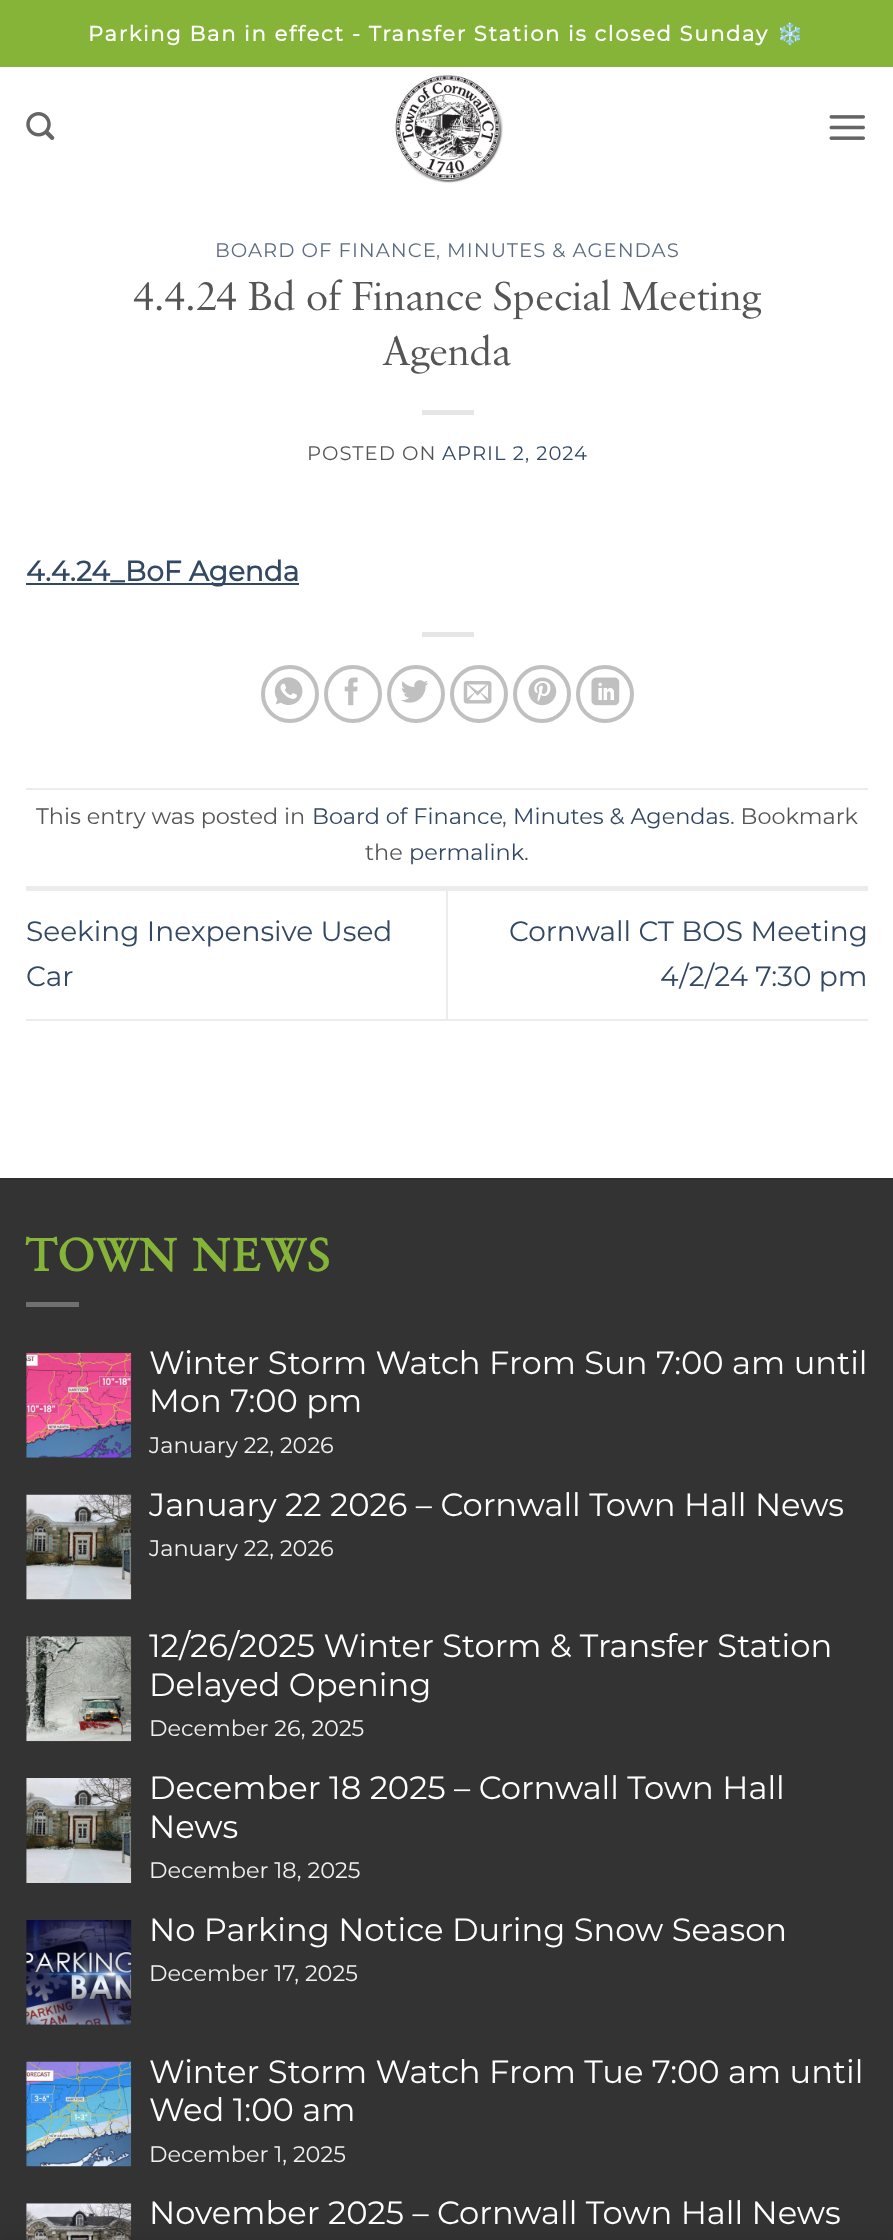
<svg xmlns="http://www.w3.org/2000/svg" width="893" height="2240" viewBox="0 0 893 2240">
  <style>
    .t1 { font: bold 21px Montserrat; letter-spacing: 1.75px; fill: #fff; }
    .t2 { font: bold 21px Noto Color Emoji; letter-spacing: 1.75px; fill: #fff; }
    .t3 { font: 100 19.6px Montserrat; letter-spacing: 1px; fill: #5c6d81; }
    .t4 { font: 100 19.6px Montserrat; letter-spacing: 1px; fill: #777; }
    .t5 { font: 42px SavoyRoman; fill: #555; }
    .t6 { font: 100 19.6px Montserrat; letter-spacing: 1px; fill: #555; }
    .t7 { font: 100 19.6px Montserrat; letter-spacing: 1px; fill: #334862; }
    .t8 { font: bold 28px Montserrat; fill: #334862; }
    .t9 { font: 100 22.4px Montserrat; fill: #555; }
    .t10 { font: 100 22.4px Montserrat; fill: #334862; }
    .t11 { font: 100 28px Montserrat; fill: #334862; }
    .t12 { font: bold 47.5px SavoyRoman; letter-spacing: 2.4px; fill: #85b438; }
    .t13 { font: 100 32.2px Montserrat; fill: #fff; }
    .t14 { font: 100 22.4px Montserrat; fill: #f1f1f1; }
  </style>
  <rect width="100%" height="100%" fill="#fff"/>
  <rect x="0" y="0" width="893" height="67" fill="#85b438"/>
  <text x="88" y="41" word-spacing="-0.25" class="t1">Parking Ban in effect - Transfer Station is closed Sunday</text>
  <text x="777" y="41" class="t2">❄️</text>
  <image x="26" y="112" width="29" height="28" href="images/1.png"/>
  <image x="395" y="75" width="108" height="108" href="images/2.png"/>
  <image x="829" y="115" width="36" height="25" href="images/3.png"/>
  <text x="215" y="257" class="t3">BOARD OF FINANCE</text>
  <text x="436" y="257" class="t4">,</text>
  <text x="447" y="257" class="t3">MINUTES &amp; AGENDAS</text>
  <text x="133" y="310" class="t5">4.4.24 Bd of Finance Special Meeting</text>
  <text x="383" y="365" class="t5">Agenda</text>
  <rect x="422" y="410" width="52" height="5" fill="#e6e6e6"/>
  <text x="307" y="460" class="t6">POSTED ON</text>
  <text x="442" y="460" class="t7">APRIL 2, 2024</text>
  <rect x="26" y="583" width="273" height="2" fill="#334862"/>
  <text x="26" y="581" class="t8">4.4.24_BoF Agenda</text>
  <rect x="422" y="632" width="52" height="5" fill="#e6e6e6"/>
  <circle cx="290" cy="694" r="27" fill="none" stroke="#c0c0c0" stroke-width="4"/>
  <image x="274" y="677" width="29" height="28" href="images/4.png"/>
  <circle cx="353" cy="694" r="27" fill="none" stroke="#c0c0c0" stroke-width="4"/>
  <image x="344" y="677" width="14" height="29" href="images/5.png"/>
  <circle cx="416" cy="694" r="27" fill="none" stroke="#c0c0c0" stroke-width="4"/>
  <image x="401" y="680" width="27" height="23" href="images/6.png"/>
  <circle cx="479" cy="694" r="27" fill="none" stroke="#c0c0c0" stroke-width="4"/>
  <image x="463" y="681" width="29" height="23" href="images/7.png"/>
  <circle cx="542" cy="694" r="27" fill="none" stroke="#c0c0c0" stroke-width="4"/>
  <image x="528" y="677" width="29" height="29" href="images/8.png"/>
  <circle cx="605" cy="694" r="27" fill="none" stroke="#c0c0c0" stroke-width="4"/>
  <image x="591" y="677" width="29" height="29" href="images/9.png"/>
  <rect x="26" y="788" width="842" height="2" fill="#ececec"/>
  <rect x="26" y="886" width="842" height="5" fill="#ececec"/>
  <text x="36" y="824" class="t9">This entry was posted in</text>
  <text x="312" y="824" class="t10">Board of Finance</text>
  <text x="502" y="824" class="t9">,</text>
  <text x="513" y="824" class="t10">Minutes &amp; Agendas</text>
  <text x="730" y="824" class="t9">. Bookmark</text>
  <text x="365" y="860" class="t9">the</text>
  <text x="409" y="860" class="t10">permalink</text>
  <text x="524" y="860" class="t9">.</text>
  <rect x="26" y="1019" width="842" height="2" fill="#ececec"/>
  <text x="26" y="941" class="t11">Seeking Inexpensive Used</text>
  <text x="26" y="986" class="t11">Car</text>
  <rect x="446" y="891" width="2" height="128" fill="#ececec"/>
  <text x="509" y="941" class="t11">Cornwall CT BOS Meeting</text>
  <text x="660" y="986" class="t11">4/2/24 7:30 pm</text>
  <rect x="0" y="1180" width="893" height="1060" fill="#333"/>
  <rect x="0" y="1178" width="893" height="2" fill="#303030"/>
  <text x="26" y="1271" class="t12">TOWN NEWS</text>
  <rect x="26" y="1302" width="53" height="5" fill="#707070"/>
  <image x="26" y="1352" width="106" height="106" href="images/10.png"/>
  <text x="149" y="1374" class="t13">Winter Storm Watch From Sun 7:00 am until</text>
  <text x="149" y="1412" class="t13">Mon 7:00 pm</text>
  <text x="149" y="1453" class="t14">January 22, 2026</text>
  <image x="26" y="1494" width="106" height="106" href="images/11.png"/>
  <text x="149" y="1516" class="t13">January 22 2026 – Cornwall Town Hall News</text>
  <text x="149" y="1556" class="t14">January 22, 2026</text>
  <image x="26" y="1636" width="106" height="106" href="images/12.png"/>
  <text x="149" y="1657" class="t13">12/26/2025 Winter Storm &amp; Transfer Station</text>
  <text x="149" y="1696" class="t13">Delayed Opening</text>
  <text x="149" y="1736" class="t14">December 26, 2025</text>
  <image x="26" y="1778" width="106" height="105" href="images/13.png"/>
  <text x="149" y="1799" class="t13">December 18 2025 – Cornwall Town Hall</text>
  <text x="149" y="1838" class="t13">News</text>
  <text x="149" y="1878" class="t14">December 18, 2025</text>
  <image x="26" y="1920" width="106" height="105" href="images/14.png"/>
  <text x="149" y="1941" class="t13">No Parking Notice During Snow Season</text>
  <text x="149" y="1981" class="t14">December 17, 2025</text>
  <image x="26" y="2061" width="106" height="106" href="images/15.png"/>
  <text x="149" y="2083" class="t13">Winter Storm Watch From Tue 7:00 am until</text>
  <text x="149" y="2121" class="t13">Wed 1:00 am</text>
  <text x="149" y="2162" class="t14">December 1, 2025</text>
  <image x="26" y="2203" width="106" height="37" href="images/16.png"/>
  <text x="149" y="2224" class="t13">November 2025 – Cornwall Town Hall News</text>
  <rect x="0" y="2240" width="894" height="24" fill="#00000024" filter="blur(8px)"/>
</svg>
